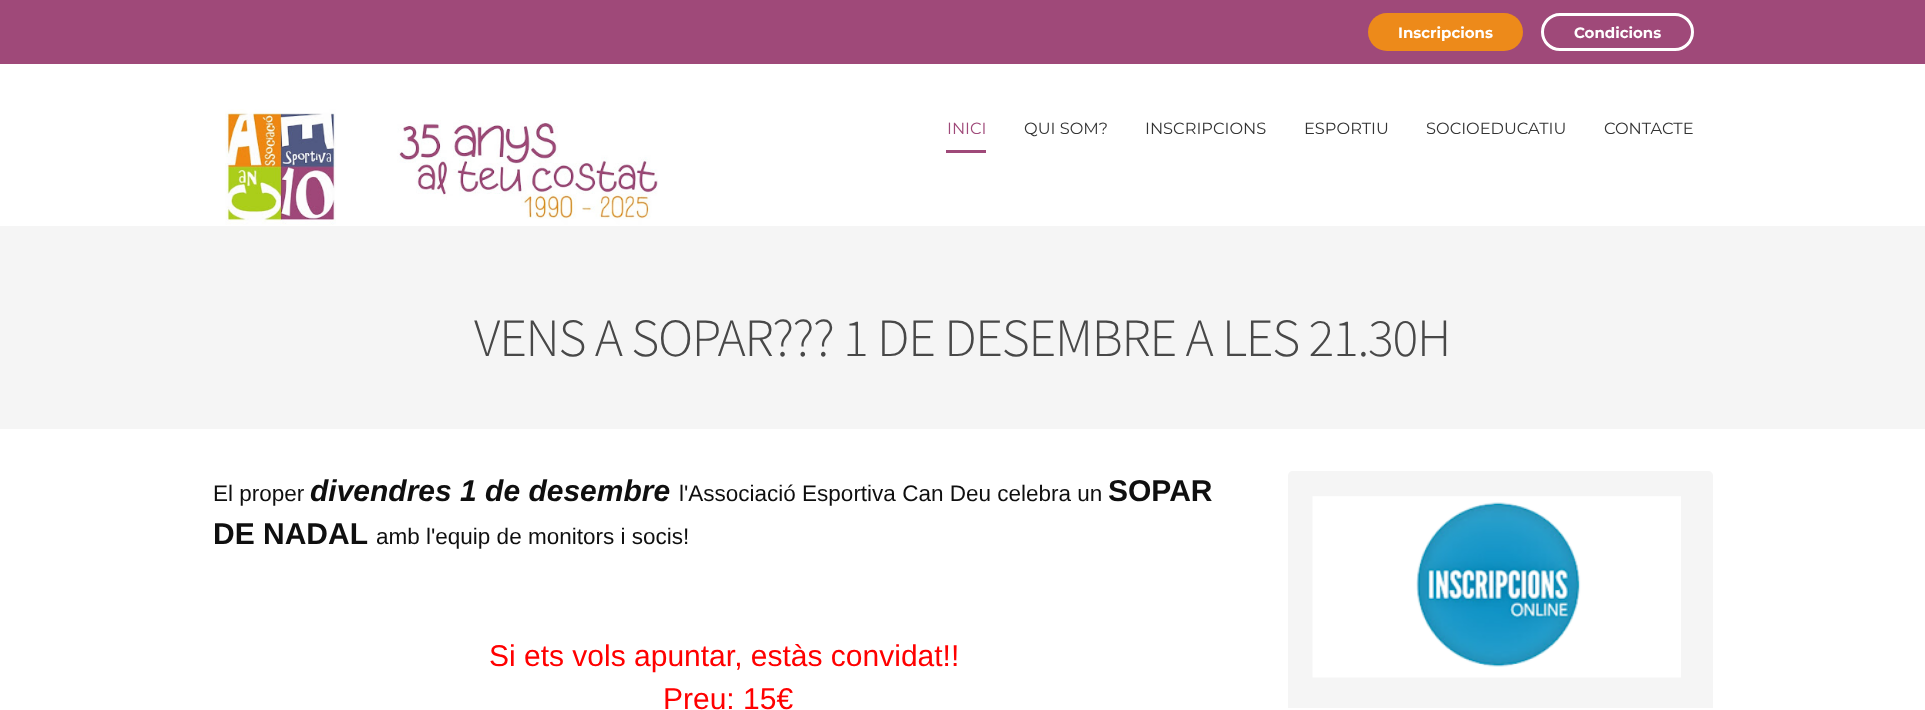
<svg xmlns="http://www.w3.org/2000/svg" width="1925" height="710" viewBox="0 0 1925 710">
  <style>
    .t1 { font: bold 15px Montserrat; fill: #fff; }
    .t2 { font: 16.25px Montserrat; fill: #9f4979; }
    .t3 { font: 16.25px Montserrat; fill: #333; }
    .t4 { font: 300 53.75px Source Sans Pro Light; letter-spacing: -1.25px; fill: #484848; }
    .t5 { font: 22.5px Liberation Sans; fill: #0f0f0f; }
    .t6 { font: italic bold 30px Liberation Sans; fill: #0f0f0f; }
    .t7 { font: bold 30px Liberation Sans; fill: #0f0f0f; }
    .t8 { font: 30px Liberation Sans; fill: #f00; }
  </style>
  <rect width="100%" height="100%" fill="#fff"/>
  <rect x="0" y="0" width="1925" height="64" fill="#9f4979"/>
  <rect x="1368" y="13" width="155" height="38" rx="19" fill="#ed8a1a"/>
  <text x="1398" y="38" class="t1">Inscripcions</text>
  <rect x="1542.5" y="14.5" width="150" height="35" rx="17.5" fill="none" stroke="#fff" stroke-width="3"/>
  <text x="1574" y="38" class="t1">Condicions</text>
  <image x="225" y="109" width="434" height="116" href="images/1.png"/>
  <rect x="946" y="150" width="40" height="3" fill="#9f4979"/>
  <text x="947" y="134" class="t2">INICI</text>
  <text x="1024" y="134" class="t3">QUI SOM?</text>
  <text x="1145" y="134" class="t3">INSCRIPCIONS</text>
  <text x="1304" y="134" class="t3">ESPORTIU</text>
  <text x="1426" y="134" class="t3">SOCIOEDUCATIU</text>
  <text x="1604" y="134" class="t3">CONTACTE</text>
  <rect x="0" y="226" width="1925" height="203" fill="#f5f5f5"/>
  <text x="474" y="356" class="t4">VENS A SOPAR??? 1 DE DESEMBRE A LES 21.30H</text>
  <text x="213" y="501" class="t5">El proper</text>
  <text x="310" y="501" class="t6">divendres 1 de desembre</text>
  <text x="679" y="501" class="t5">l'Associació Esportiva Can Deu celebra un</text>
  <text x="1108" y="501" class="t7">SOPAR</text>
  <text x="213" y="544" class="t7">DE NADAL</text>
  <text x="376" y="544" class="t5">amb l'equip de monitors i socis!</text>
  <text x="489" y="666" class="t8">Si ets vols apuntar, estàs convidat!!</text>
  <text x="663" y="709" class="t8">Preu: 15€</text>
  <path d="M1293 471H1708C1711 471 1713 473 1713 476V708H1288V476C1288 473 1290 471 1293 471Z" fill="#f5f5f5"/>
  <image x="1312" y="496" width="369" height="182" href="images/2.png"/>
</svg>
